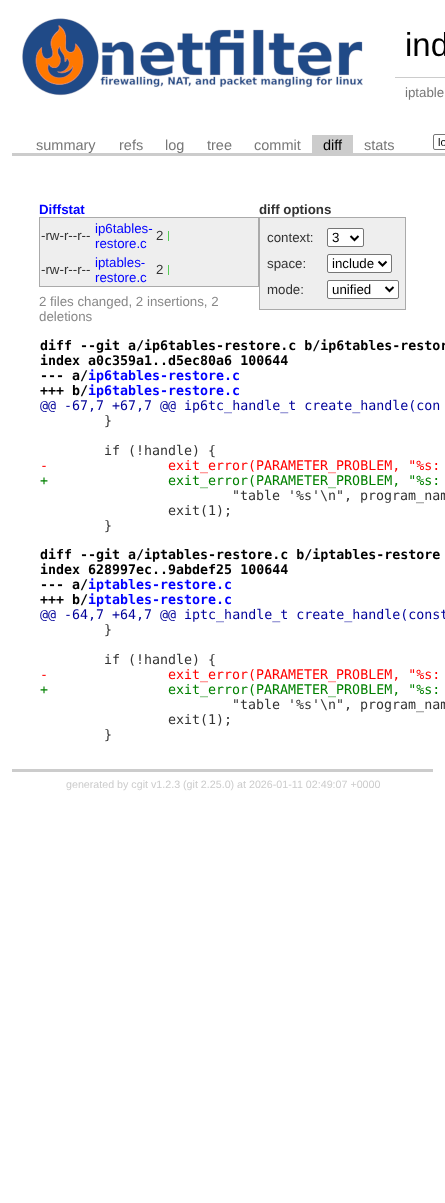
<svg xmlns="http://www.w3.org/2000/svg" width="445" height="1203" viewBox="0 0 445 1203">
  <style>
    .t1 { font: 33px Liberation Sans; fill: #000; }
    .t2 { font: 13.3px Liberation Sans; fill: #777; }
    .t3 { font: 14.5px Liberation Sans; fill: #777; }
    .t4 { font: 14.5px Liberation Sans; fill: #000; }
    .t5 { font: 11px Liberation Sans; fill: #000; }
    .t6 { font: bold 13.3px Liberation Sans; fill: #00f; }
    .t7 { font: bold 13.3px Liberation Sans; fill: #333; }
    .t8 { font: 13.3px Liberation Sans; fill: #333; }
    .t9 { font: 13.3px Liberation Sans; fill: #000; }
    .t10 { font: 13.3px Liberation Sans; fill: #00f; }
    .t11 { font: 13.3px Liberation Sans; fill: #888; }
    .t12 { font: bold 13.3px DejaVu Sans Mono; fill: #000; }
    .t13 { font: bold 13.3px DejaVu Sans Mono; fill: #00f; }
    .t14 { font: 13.3px DejaVu Sans Mono; fill: #009; }
    .t15 { font: 13.3px DejaVu Sans Mono; fill: #333; }
    .t16 { font: 13.3px DejaVu Sans Mono; fill: #f00; }
    .t17 { font: 13.3px DejaVu Sans Mono; fill: #008000; }
    .t18 { font: 10.7px Liberation Sans; fill: #ccc; }
  </style>
  <rect width="100%" height="100%" fill="#fff"/>
  <image x="22" y="18" width="341" height="78" href="images/1.png"/>
  <text x="405" y="56" class="t1">ind</text>
  <rect x="395" y="77" width="50" height="1" fill="#ccc"/>
  <text x="405" y="97" class="t2">iptable</text>
  <rect x="12" y="153" width="433" height="3" fill="#ccc"/>
  <text x="36" y="150" class="t3">summary</text>
  <text x="119" y="150" class="t3">refs</text>
  <text x="165" y="150" class="t3">log</text>
  <text x="207" y="150" class="t3">tree</text>
  <text x="254" y="150" class="t3">commit</text>
  <rect x="312" y="135" width="41" height="18" fill="#ccc"/>
  <text x="323" y="150" class="t4">diff</text>
  <text x="364" y="150" class="t3">stats</text>
  <rect x="433.5" y="134.5" width="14" height="15" rx="1.5" fill="none" stroke="#767676"/>
  <text x="438" y="146" class="t5">lo</text>
  <rect x="12" y="769" width="421" height="3" fill="#ccc"/>
  <text x="39" y="214" class="t6">Diffstat</text>
  <text x="259" y="214" class="t7">diff options</text>
  <rect x="260" y="218" width="145" height="91" fill="#eee"/>
  <rect x="39" y="217" width="367" height="1" fill="#aaa"/>
  <rect x="405" y="217" width="1" height="93" fill="#aaa"/>
  <rect x="259" y="309" width="147" height="1" fill="#aaa"/>
  <rect x="259" y="217" width="1" height="93" fill="#aaa"/>
  <text x="267" y="242" class="t8">context:</text>
  <rect x="327.5" y="228.5" width="36" height="18" rx="1.5" fill="#fff" stroke="#767676"/>
  <path d="M350.5 236L354.5 240L358.5 236" fill="none" stroke="#000" stroke-width="2"/>
  <text x="332" y="242" class="t9">3</text>
  <text x="267" y="268" class="t8">space:</text>
  <rect x="327.5" y="254.5" width="64" height="18" rx="1.5" fill="#fff" stroke="#767676"/>
  <path d="M378.5 261.5L382.5 265.5L386.5 261.5" fill="none" stroke="#000" stroke-width="2"/>
  <text x="332" y="268" class="t9">include</text>
  <text x="267" y="294" class="t8">mode:</text>
  <rect x="327.5" y="280.5" width="71" height="18" rx="1.5" fill="#fff" stroke="#767676"/>
  <path d="M385.5 287L389.5 291L393.5 287" fill="none" stroke="#000" stroke-width="2"/>
  <text x="332" y="294" class="t9">unified</text>
  <rect x="40" y="218" width="218" height="68" fill="#eee"/>
  <rect x="258" y="217" width="1" height="70" fill="#aaa"/>
  <rect x="39" y="286" width="220" height="1" fill="#aaa"/>
  <rect x="39" y="217" width="1" height="70" fill="#aaa"/>
  <text x="41" y="240" class="t8">-rw-r--r--</text>
  <text x="95" y="233" class="t10">ip6tables-</text>
  <text x="95" y="248" class="t10">restore.c</text>
  <text x="156" y="240" class="t8">2</text>
  <rect x="168" y="231" width="1" height="10" fill="#5c5"/>
  <text x="41" y="274" class="t8">-rw-r--r--</text>
  <text x="95" y="267" class="t10">iptables-</text>
  <text x="95" y="282" class="t10">restore.c</text>
  <text x="156" y="274" class="t8">2</text>
  <rect x="168" y="265" width="1" height="10" fill="#5c5"/>
  <text x="39" y="306" class="t11">2 files changed, 2 insertions, 2</text>
  <text x="39" y="321" class="t11">deletions</text>
  <text x="40" y="350" class="t12">diff --git a/ip6tables-restore.c b/ip6tables-restor</text>
  <text x="40" y="365" class="t12">index a0c359a1..d5ec80a6 100644</text>
  <text x="40" y="380" class="t12">--- a/</text>
  <text x="88" y="380" class="t13">ip6tables-restore.c</text>
  <text x="40" y="395" class="t12">+++ b/</text>
  <text x="88" y="395" class="t13">ip6tables-restore.c</text>
  <text x="40" y="410" class="t14">@@ -67,7 +67,7 @@ ip6tc_handle_t create_handle(con</text>
  <text x="104" y="425" class="t15">}</text>
  <text x="104" y="455" class="t15">if (!handle) {</text>
  <text x="40" y="470" class="t16">-</text>
  <text x="168" y="470" class="t16">exit_error(PARAMETER_PROBLEM, "%s:</text>
  <text x="40" y="485" class="t17">+</text>
  <text x="168" y="485" class="t17">exit_error(PARAMETER_PROBLEM, "%s:</text>
  <text x="232" y="500" class="t15">"table '%s'\n", program_nam</text>
  <text x="168" y="515" class="t15">exit(1);</text>
  <text x="104" y="530" class="t15">}</text>
  <text x="40" y="559" class="t12">diff --git a/iptables-restore.c b/iptables-restore</text>
  <text x="40" y="574" class="t12">index 628997ec..9abdef25 100644</text>
  <text x="40" y="589" class="t12">--- a/</text>
  <text x="88" y="589" class="t13">iptables-restore.c</text>
  <text x="40" y="604" class="t12">+++ b/</text>
  <text x="88" y="604" class="t13">iptables-restore.c</text>
  <text x="40" y="619" class="t14">@@ -64,7 +64,7 @@ iptc_handle_t create_handle(const</text>
  <text x="104" y="634" class="t15">}</text>
  <text x="104" y="664" class="t15">if (!handle) {</text>
  <text x="40" y="679" class="t16">-</text>
  <text x="168" y="679" class="t16">exit_error(PARAMETER_PROBLEM, "%s:</text>
  <text x="40" y="694" class="t17">+</text>
  <text x="168" y="694" class="t17">exit_error(PARAMETER_PROBLEM, "%s:</text>
  <text x="232" y="709" class="t15">"table '%s'\n", program_nam</text>
  <text x="168" y="724" class="t15">exit(1);</text>
  <text x="104" y="739" class="t15">}</text>
  <text x="66" y="788" class="t18">generated by cgit v1.2.3 (git 2.25.0) at 2026-01-11 02:49:07 +0000</text>
</svg>
